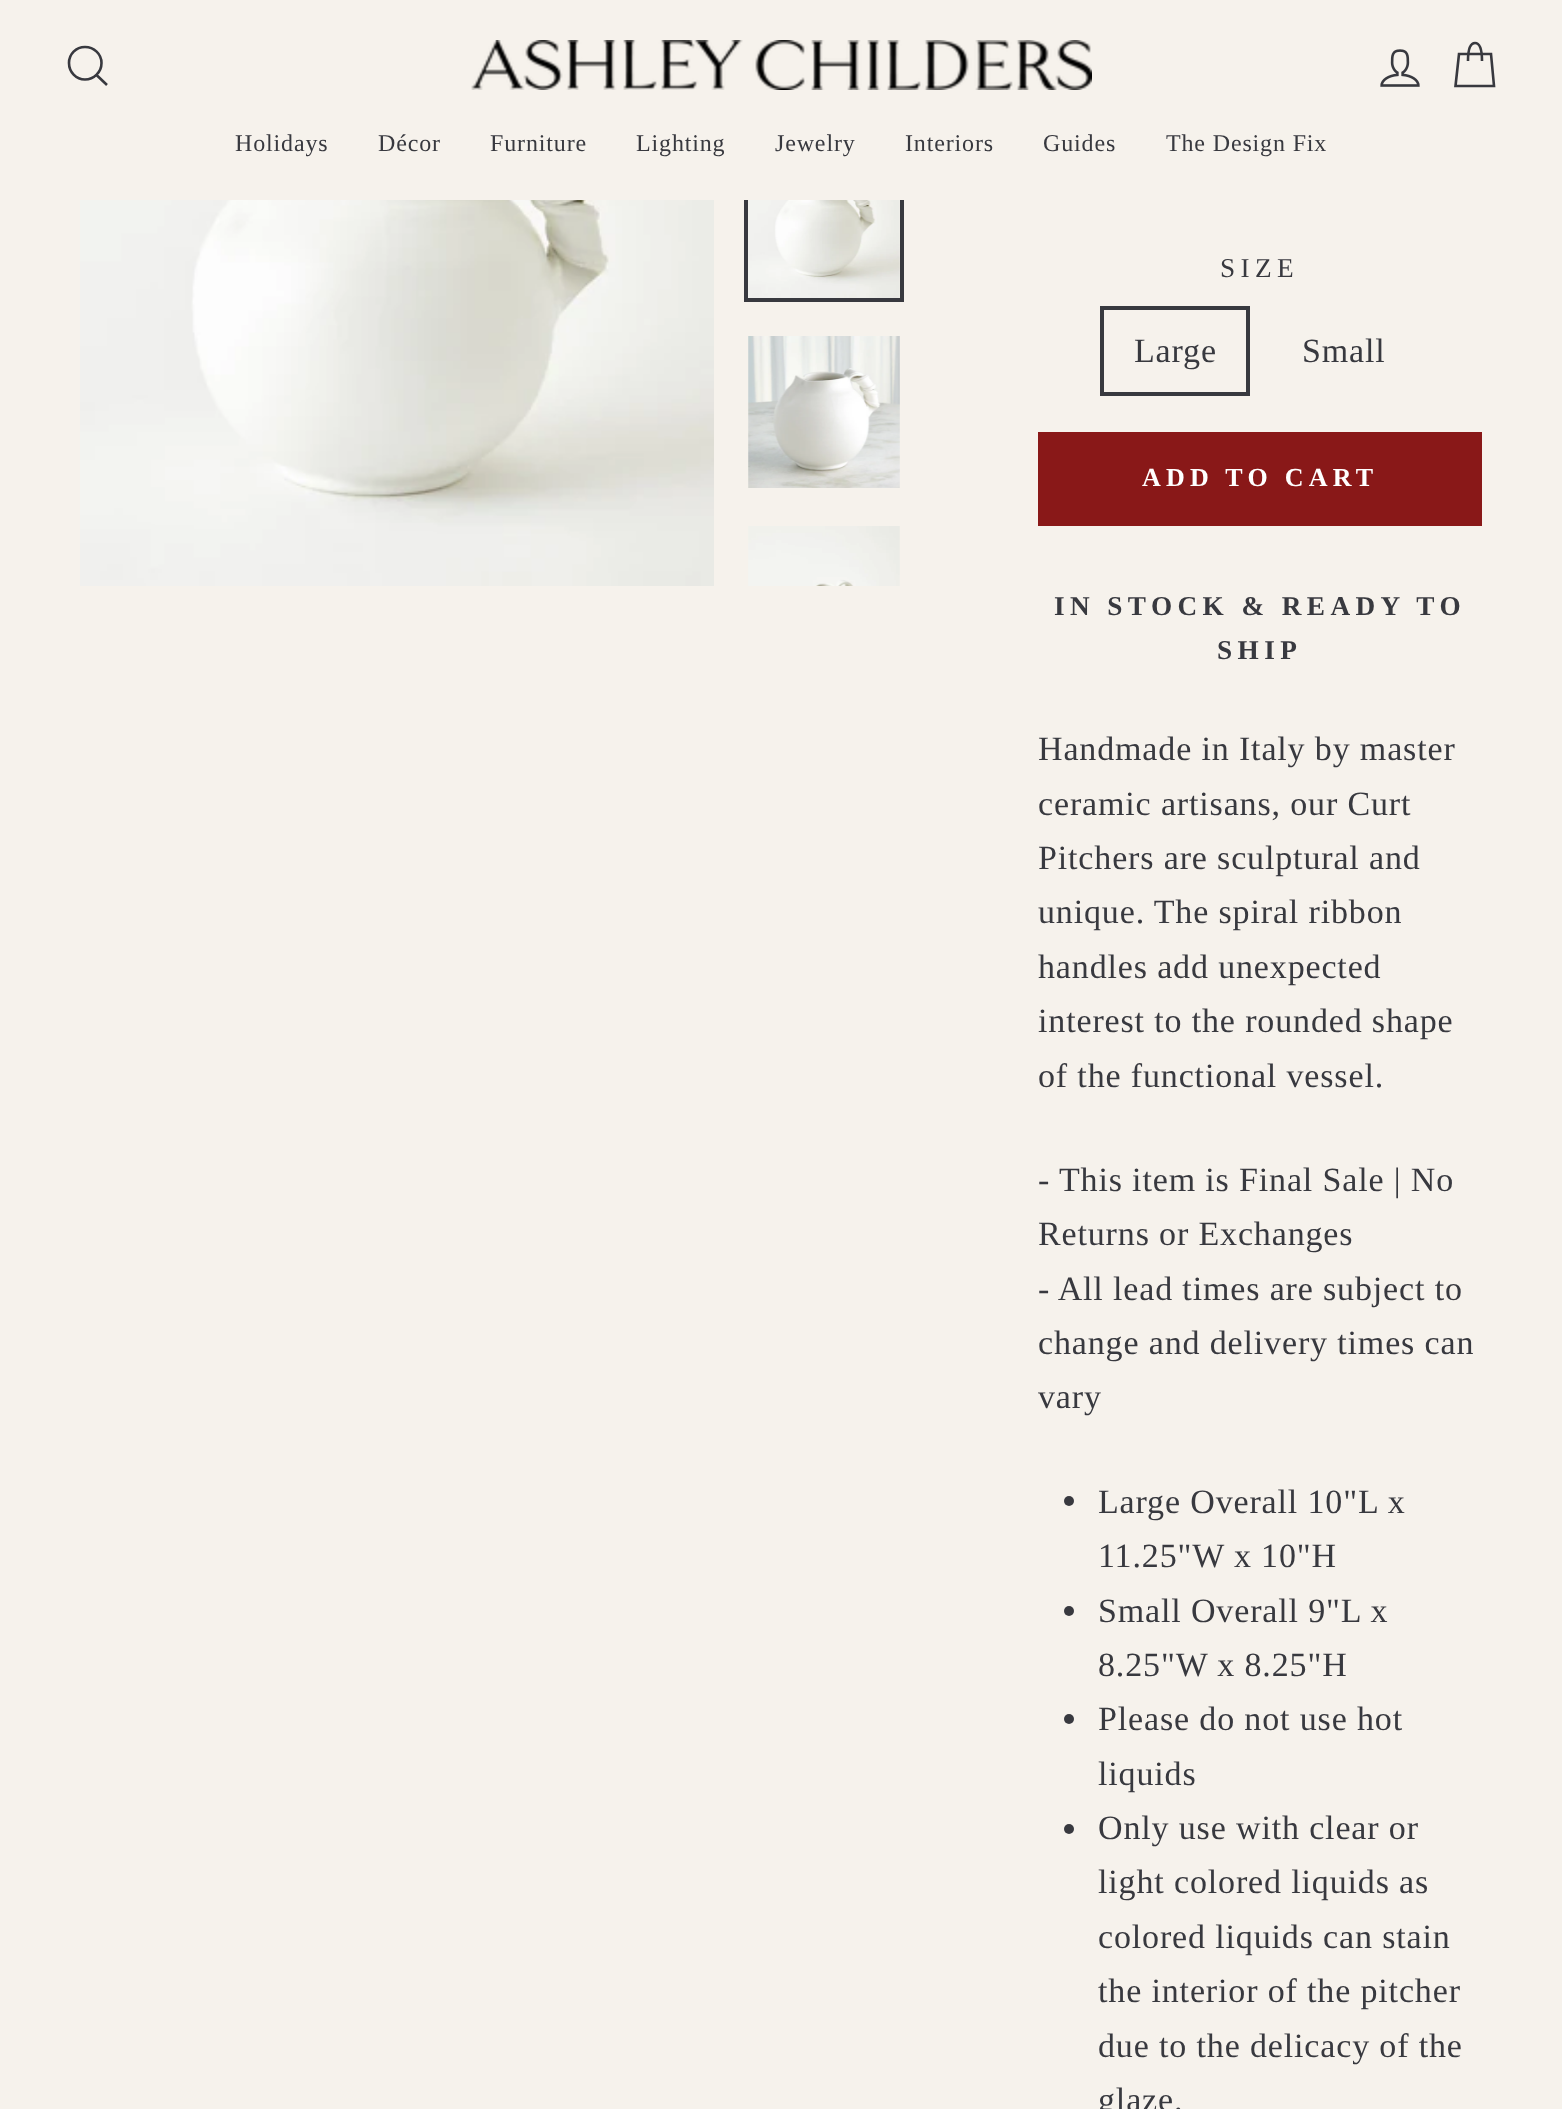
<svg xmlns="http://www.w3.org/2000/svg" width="1562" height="2109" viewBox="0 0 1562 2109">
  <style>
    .t1 { font: 24px Liberation Serif; letter-spacing: 0.85px; fill: #38393f; }
    .t2 { font: 27.25px Liberation Serif; letter-spacing: 5.4px; fill: #38393f; }
    .t3 { font: 34px Liberation Serif; letter-spacing: 0.85px; fill: #38393f; }
    .t4 { font: bold 26px Liberation Serif; letter-spacing: 5.25px; fill: #fff; }
    .t5 { font: bold 27.25px Liberation Serif; letter-spacing: 5.4px; fill: #38393f; }
  </style>
  <rect width="100%" height="100%" fill="#f6f2ec"/>
  <rect x="746" y="144" width="156" height="156" fill="none" stroke="#38393f" stroke-width="4"/>
  <rect x="744" y="142" width="160" height="58" fill="#f6f2ec"/>
  <path d="M101.5 63C101.5 72 94 79.5 85 79.5C76 79.5 69 72 69 63C69 54 76 47 85 47C94 47 101.5 54 101.5 63ZM107 85L96.5 75" fill="none" stroke="#38393f" stroke-width="2.6"/>
  <image x="471" y="40" width="621" height="50" href="images/1.png"/>
  <image x="1380" y="49" width="40" height="38" href="images/2.png"/>
  <path d="M1468 61C1468 47 1471 43 1475 43C1479 43 1482 47 1482 61M1459 54H1491L1494 86H1455.5Z" fill="none" stroke="#38393f" stroke-width="2.6"/>
  <text x="235" y="151" class="t1">Holidays</text>
  <text x="378" y="151" class="t1">Décor</text>
  <text x="490" y="151" class="t1">Furniture</text>
  <text x="636" y="151" class="t1">Lighting</text>
  <text x="775" y="151" class="t1">Jewelry</text>
  <text x="905" y="151" class="t1">Interiors</text>
  <text x="1043" y="151" class="t1">Guides</text>
  <text x="1166" y="151" class="t1">The Design Fix</text>
  <image x="80" y="200" width="634" height="386" href="images/3.png"/>
  <image x="748" y="200" width="152" height="98" href="images/4.png"/>
  <image x="748" y="336" width="152" height="152" href="images/5.png"/>
  <image x="748" y="526" width="152" height="60" href="images/6.png"/>
  <text x="1220" y="277" class="t2">SIZE</text>
  <rect x="1102" y="308" width="146" height="86" fill="none" stroke="#38393f" stroke-width="4"/>
  <text x="1134" y="362" class="t3">Large</text>
  <text x="1302" y="362" class="t3">Small</text>
  <rect x="1038" y="432" width="444" height="94" fill="#891818"/>
  <text x="1142" y="486" class="t4">ADD TO CART</text>
  <text x="1054" y="615" class="t5">IN STOCK &amp; READY TO</text>
  <text x="1217" y="659" class="t5">SHIP</text>
  <text x="1038" y="760" class="t3">Handmade in Italy by master</text>
  <text x="1038" y="815" class="t3">ceramic artisans, our Curt</text>
  <text x="1038" y="869" class="t3">Pitchers are sculptural and</text>
  <text x="1038" y="923" class="t3">unique. The spiral ribbon</text>
  <text x="1038" y="978" class="t3">handles add unexpected</text>
  <text x="1038" y="1032" class="t3">interest to the rounded shape</text>
  <text x="1038" y="1087" class="t3">of the functional vessel.</text>
  <text x="1038" y="1191" class="t3">- This item is Final Sale | No</text>
  <text x="1038" y="1245" class="t3">Returns or Exchanges</text>
  <text x="1038" y="1300" class="t3">- All lead times are subject to</text>
  <text x="1038" y="1354" class="t3">change and delivery times can</text>
  <text x="1038" y="1408" class="t3">vary</text>
  <circle cx="1069" cy="1501" r="5" fill="#38393f"/>
  <text x="1098" y="1513" class="t3">Large Overall 10"L x</text>
  <text x="1098" y="1567" class="t3">11.25"W x 10"H</text>
  <circle cx="1069" cy="1611" r="5" fill="#38393f"/>
  <text x="1098" y="1622" class="t3">Small Overall 9"L x</text>
  <text x="1098" y="1676" class="t3">8.25"W x 8.25"H</text>
  <circle cx="1069" cy="1719" r="5" fill="#38393f"/>
  <text x="1098" y="1730" class="t3">Please do not use hot</text>
  <text x="1098" y="1785" class="t3">liquids</text>
  <circle cx="1069" cy="1829" r="5" fill="#38393f"/>
  <text x="1098" y="1839" class="t3">Only use with clear or</text>
  <text x="1098" y="1893" class="t3">light colored liquids as</text>
  <text x="1098" y="1948" class="t3">colored liquids can stain</text>
  <text x="1098" y="2002" class="t3">the interior of the pitcher</text>
  <text x="1098" y="2057" class="t3">due to the delicacy of the</text>
  <text x="1098" y="2111" class="t3">glaze.</text>
</svg>
